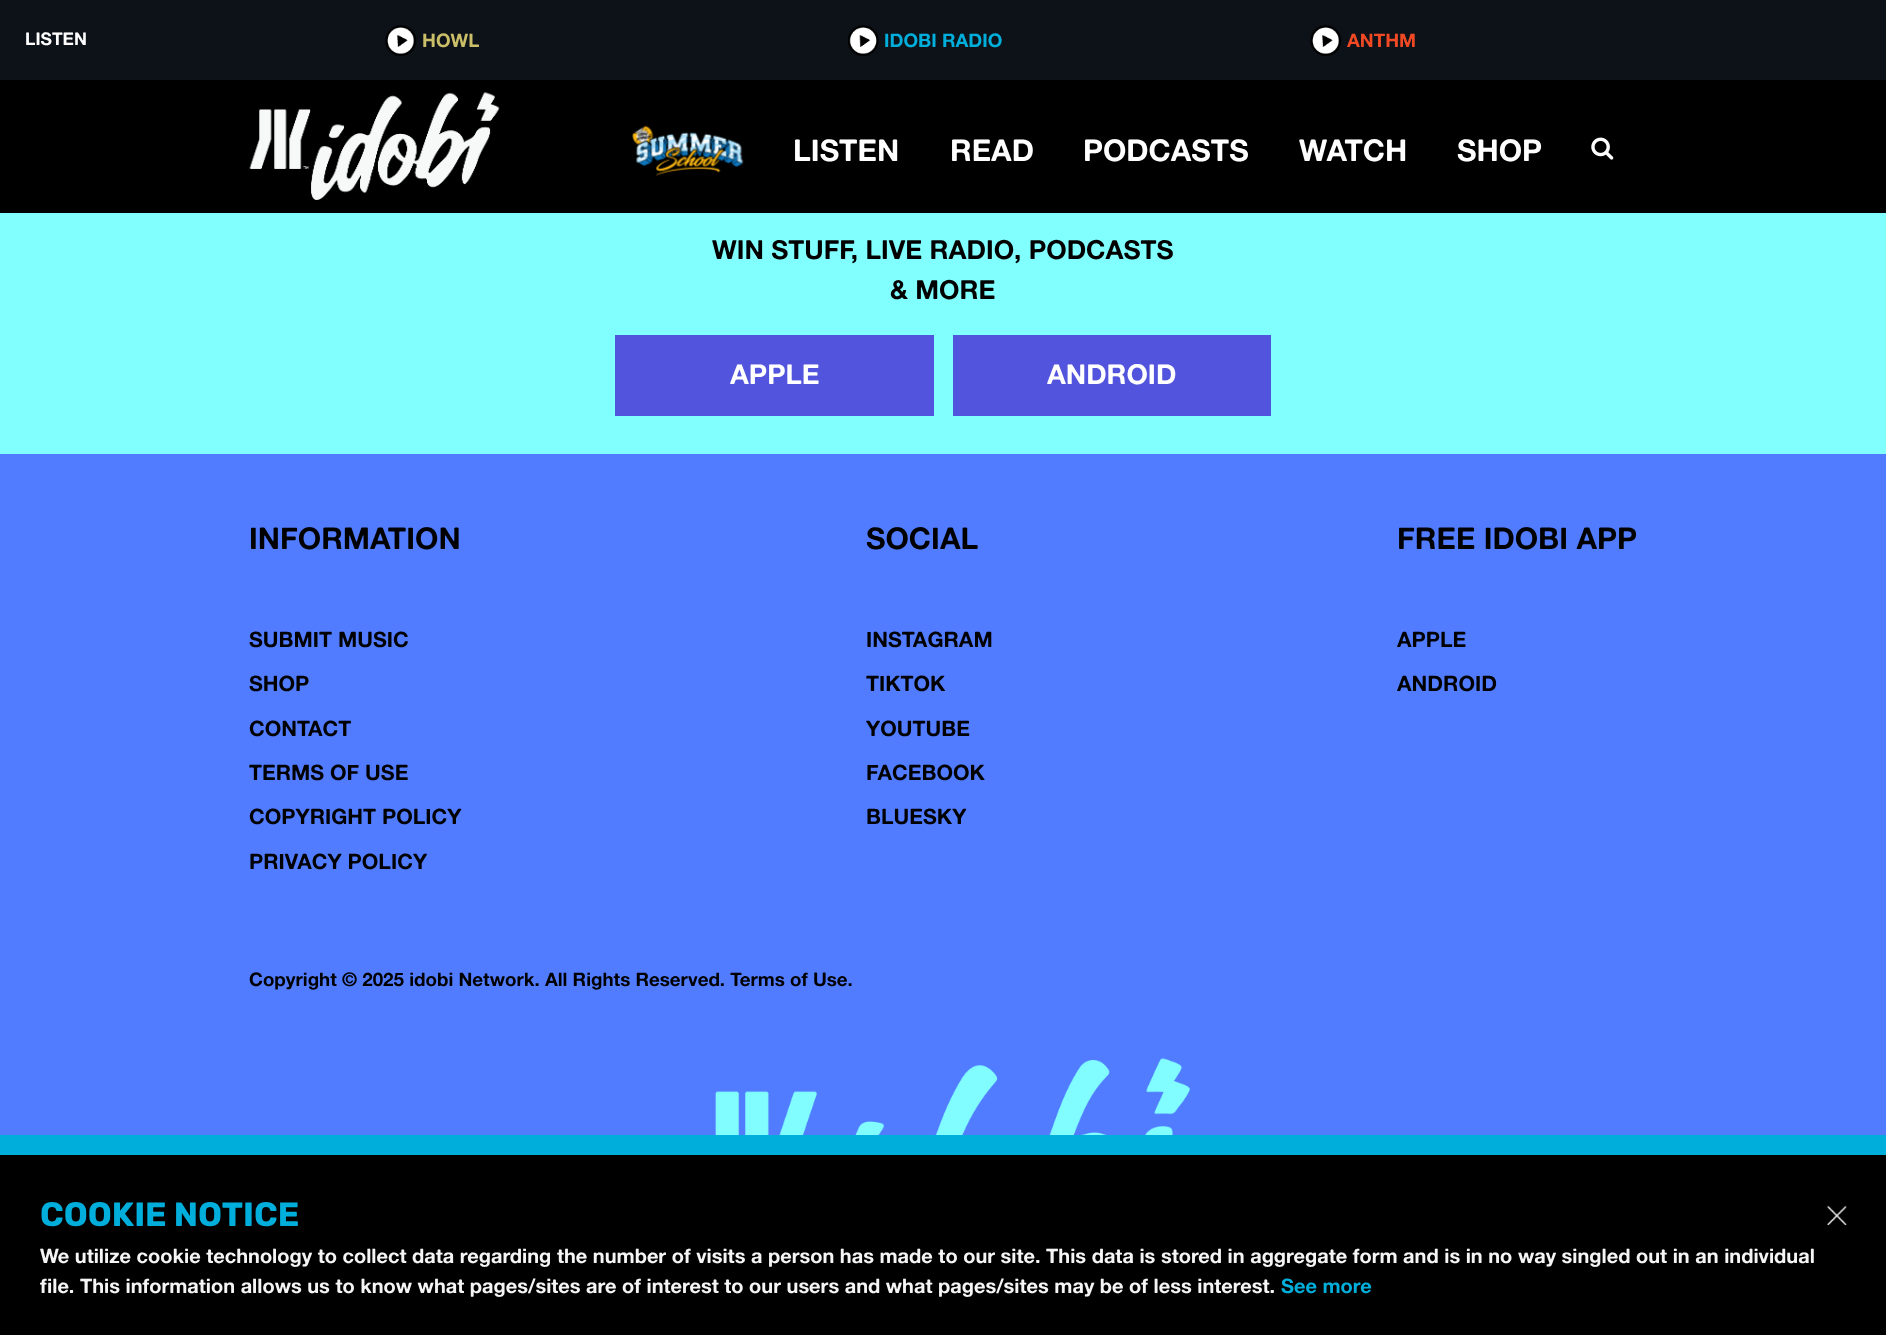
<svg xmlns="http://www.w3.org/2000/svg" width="1886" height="1335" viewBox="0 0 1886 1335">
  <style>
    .t1 { font: bold 17.5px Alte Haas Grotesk; fill: #fff; }
    .t2 { font: bold 18.75px Alte Haas Grotesk; fill: #cabe68; }
    .t3 { font: bold 18.75px Alte Haas Grotesk; fill: #00aedb; }
    .t4 { font: bold 18.75px Alte Haas Grotesk; fill: #f04924; }
    .t5 { font: bold 30px Alte Haas Grotesk; fill: #fff; }
    .t6 { font: bold 26.25px Alte Haas Grotesk; fill: #000; }
    .t7 { font: bold 27.5px Alte Haas Grotesk; fill: #fff; }
    .t8 { font: bold 30px Alte Haas Grotesk; fill: #000; }
    .t9 { font: bold 21.25px Alte Haas Grotesk; fill: #000; }
    .t10 { font: bold 18.75px Alte Haas Grotesk; fill: #000; }
    .t11 { font: bold 33.75px Rubik; fill: #00aedb; }
    .t12 { font: bold 20px Alte Haas Grotesk; fill: #f5f5f5; }
    .t13 { font: bold 20px Alte Haas Grotesk; fill: #00aedb; }
  </style>
  <rect width="100%" height="100%" fill="#81fffe"/>
  <rect x="0" y="80" width="1886" height="133" fill="#000"/>
  <rect x="0" y="0" width="1886" height="80" fill="#0d1218"/>
  <text x="25" y="45" class="t1">LISTEN</text>
  <image x="385" y="25" width="32" height="31" href="images/1.png"/>
  <text x="422" y="47" class="t2">HOWL</text>
  <image x="848" y="25" width="31" height="31" href="images/2.png"/>
  <text x="884" y="47" class="t3">IDOBI RADIO</text>
  <image x="1310" y="25" width="32" height="31" href="images/1.png"/>
  <text x="1347" y="47" class="t4">ANTHM</text>
  <image x="249" y="92" width="251" height="108" href="images/3.png"/>
  <image x="632" y="125" width="112" height="51" href="images/4.png"/>
  <text x="793" y="161" class="t5">LISTEN</text>
  <text x="950" y="161" class="t5">READ</text>
  <text x="1083" y="161" class="t5">PODCASTS</text>
  <text x="1299" y="161" class="t5">WATCH</text>
  <text x="1457" y="161" class="t5">SHOP</text>
  <image x="1591" y="137" width="23" height="23" href="images/5.png"/>
  <text x="712" y="259" class="t6">WIN STUFF, LIVE RADIO, PODCASTS</text>
  <text x="890" y="299" class="t6">&amp; MORE</text>
  <rect x="615" y="335" width="319" height="81" fill="#5254dd"/>
  <text x="730" y="384" class="t7">APPLE</text>
  <rect x="953" y="335" width="318" height="81" fill="#5254dd"/>
  <text x="1047" y="384" class="t7">ANDROID</text>
  <rect x="0" y="454" width="1886" height="681" fill="#517cff"/>
  <text x="249" y="549" class="t8">INFORMATION</text>
  <text x="249" y="647" class="t9">SUBMIT MUSIC</text>
  <text x="249" y="691" class="t9">SHOP</text>
  <text x="249" y="736" class="t9">CONTACT</text>
  <text x="249" y="780" class="t9">TERMS OF USE</text>
  <text x="249" y="824" class="t9">COPYRIGHT POLICY</text>
  <text x="249" y="869" class="t9">PRIVACY POLICY</text>
  <text x="866" y="549" class="t8">SOCIAL</text>
  <text x="866" y="647" class="t9">INSTAGRAM</text>
  <text x="866" y="691" class="t9">TIKTOK</text>
  <text x="866" y="736" class="t9">YOUTUBE</text>
  <text x="866" y="780" class="t9">FACEBOOK</text>
  <text x="866" y="824" class="t9">BLUESKY</text>
  <text x="1397" y="549" class="t8">FREE IDOBI APP</text>
  <text x="1397" y="647" class="t9">APPLE</text>
  <text x="1397" y="691" class="t9">ANDROID</text>
  <text x="249" y="986" class="t10">Copyright © 2025 idobi Network. All Rights Reserved. Terms of Use.</text>
  <image x="715" y="1058" width="475" height="77" href="images/6.png"/>
  <rect x="0" y="1155" width="1886" height="180" fill="#000"/>
  <rect x="0" y="1135" width="1886" height="20" fill="#00aedb"/>
  <text x="40" y="1226" class="t11">COOKIE NOTICE</text>
  <image x="1827" y="1205" width="20" height="20" href="images/7.png"/>
  <text x="40" y="1263" class="t12">We utilize cookie technology to collect data regarding the number of visits a person has made to our site. This data is stored in aggregate form and is in no way singled out in an individual</text>
  <text x="40" y="1293" class="t12">file. This information allows us to know what pages/sites are of interest to our users and what pages/sites may be of less interest.</text>
  <text x="1281" y="1293" class="t13">See more</text>
</svg>
